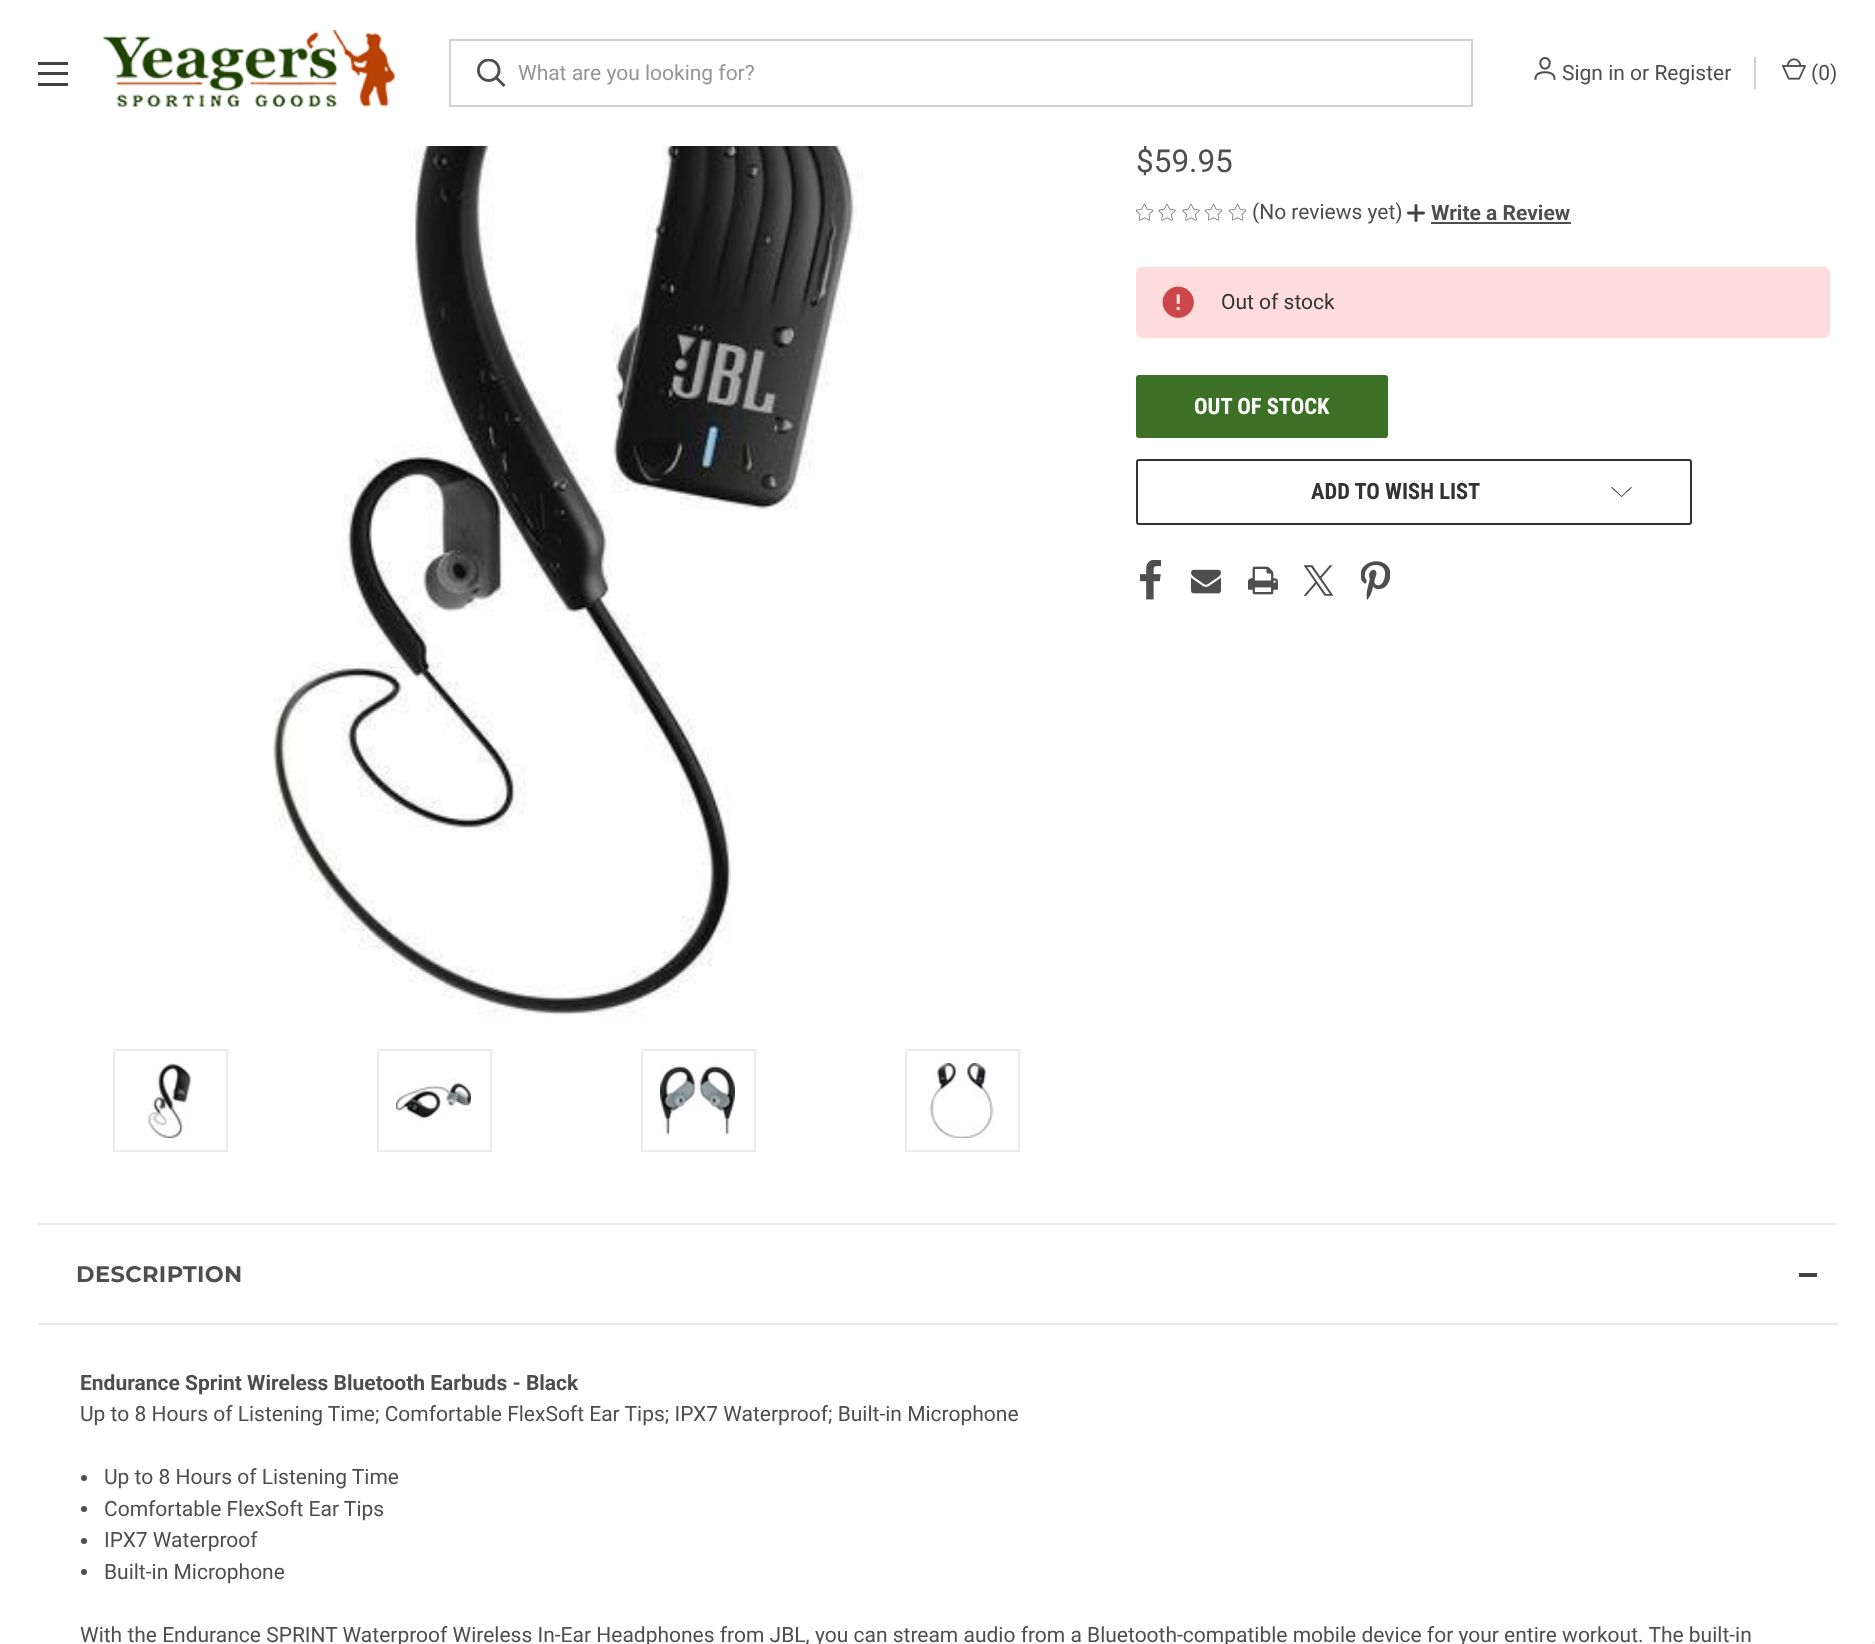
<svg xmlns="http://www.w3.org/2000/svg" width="1875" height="1644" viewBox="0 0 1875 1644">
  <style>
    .t1 { font: 21px Roboto; fill: #969696; }
    .t2 { font: 21px Roboto; fill: #4e4e4e; }
    .t3 { font: 31.5px Roboto; fill: #4e4e4e; }
    .t4 { font: bold 21px Roboto; fill: #4e4e4e; }
    .t5 { font: 21px Roboto; fill: #333; }
    .t6 { font: bold 22.5px Roboto Condensed; fill: #fff; }
    .t7 { font: bold 22.5px Roboto Condensed; fill: #333; }
    .t8 { font: bold 22.5px Montserrat; letter-spacing: 0.4px; fill: #4e4e4e; }
  </style>
  <rect width="100%" height="100%" fill="#fff"/>
  <rect x="38" y="72" width="30" height="3" fill="#424242"/>
  <rect x="38" y="62" width="30" height="3" fill="#424242"/>
  <rect x="38" y="83" width="30" height="3" fill="#424242"/>
  <image x="103" y="30" width="292" height="77" href="images/1.png"/>
  <rect x="450" y="40" width="1022" height="66" fill="none" stroke="#d2d2d2" stroke-width="2"/>
  <image x="477" y="59" width="29" height="28" href="images/2.png"/>
  <text x="518" y="80" class="t1">What are you looking for?</text>
  <image x="1534" y="57" width="22" height="23" href="images/3.png"/>
  <text x="1562" y="80" class="t2">Sign in or Register</text>
  <rect x="1754" y="57" width="2" height="32" fill="#d2d2d2"/>
  <image x="1782" y="58" width="24" height="22" href="images/4.png"/>
  <text x="1811" y="80" class="t2">(0)</text>
  <image x="273" y="146" width="591" height="871" href="images/5.png"/>
  <rect x="114" y="1050" width="113" height="101" fill="none" stroke="#ebebeb" stroke-width="2"/>
  <image x="144" y="1063" width="48" height="75" href="images/6.png"/>
  <rect x="378" y="1050" width="113" height="101" fill="none" stroke="#ebebeb" stroke-width="2"/>
  <image x="396" y="1077" width="75" height="46" href="images/7.png"/>
  <rect x="642" y="1050" width="113" height="101" fill="none" stroke="#ebebeb" stroke-width="2"/>
  <image x="660" y="1063" width="75" height="72" href="images/8.png"/>
  <rect x="906" y="1050" width="113" height="101" fill="none" stroke="#ebebeb" stroke-width="2"/>
  <image x="926" y="1063" width="68" height="75" href="images/9.png"/>
  <text x="1136" y="172" class="t3">$59.95</text>
  <image x="1136" y="204" width="18" height="17" href="images/10.png"/>
  <image x="1158" y="204" width="18" height="17" href="images/11.png"/>
  <image x="1182" y="204" width="18" height="17" href="images/11.png"/>
  <image x="1205" y="204" width="18" height="17" href="images/10.png"/>
  <image x="1229" y="204" width="18" height="17" href="images/10.png"/>
  <text x="1252" y="219" class="t2">(No reviews yet)</text>
  <image x="1407" y="204" width="18" height="18" href="images/12.png"/>
  <text x="1431" y="220" class="t4">Write a Review</text>
  <rect x="1431" y="222" width="140" height="2" fill="#4e4e4e"/>
  <rect x="1136" y="267" width="694" height="71" rx="6" fill="#fdd"/>
  <image x="1162" y="286" width="32" height="32" href="images/13.png"/>
  <text x="1221" y="309" class="t5">Out of stock</text>
  <rect x="1136" y="375" width="252" height="63" rx="3" fill="#3b7025"/>
  <text x="1194" y="414" class="t6">OUT OF STOCK</text>
  <rect x="1137" y="460" width="554" height="64" rx="2" fill="none" stroke="#333" stroke-width="2"/>
  <text x="1311" y="499" class="t7">ADD TO WISH LIST</text>
  <path d="M1621.5 496L1631 487L1632 487.5L1621.5 497L1611 487.5L1612 487Z" fill="#333" fill-rule="evenodd"/>
  <image x="1140" y="560" width="21" height="40" href="images/14.png"/>
  <image x="1191" y="569" width="30" height="25" href="images/15.png"/>
  <image x="1248" y="566" width="30" height="29" href="images/16.png"/>
  <image x="1304" y="565" width="29" height="31" href="images/17.png"/>
  <image x="1361" y="561" width="29" height="39" href="images/18.png"/>
  <rect x="38" y="1223" width="1800" height="2" fill="#ebebeb"/>
  <rect x="38" y="1323" width="1800" height="2" fill="#ebebeb"/>
  <text x="76" y="1282" class="t8">DESCRIPTION</text>
  <rect x="1799" y="1273" width="18" height="4" fill="#424242"/>
  <text x="80" y="1390" class="t4">Endurance Sprint Wireless Bluetooth Earbuds - Black</text>
  <text x="80" y="1421" class="t2">Up to 8 Hours of Listening Time; Comfortable FlexSoft Ear Tips; IPX7 Waterproof; Built-in Microphone</text>
  <circle cx="84" cy="1478" r="3" fill="#4e4e4e"/>
  <text x="104" y="1484" class="t2">Up to 8 Hours of Listening Time</text>
  <circle cx="84" cy="1509" r="3" fill="#4e4e4e"/>
  <text x="104" y="1516" class="t2">Comfortable FlexSoft Ear Tips</text>
  <circle cx="84" cy="1541" r="3" fill="#4e4e4e"/>
  <text x="104" y="1547" class="t2">IPX7 Waterproof</text>
  <circle cx="84" cy="1572" r="3" fill="#4e4e4e"/>
  <text x="104" y="1579" class="t2">Built-in Microphone</text>
  <text x="80" y="1642" class="t2">With the Endurance SPRINT Waterproof Wireless In-Ear Headphones from JBL, you can stream audio from a Bluetooth-compatible mobile device for your entire workout. The built-in</text>
  <rect x="1872" y="1641" width="3" height="3" fill="#f5f5f5"/>
</svg>
